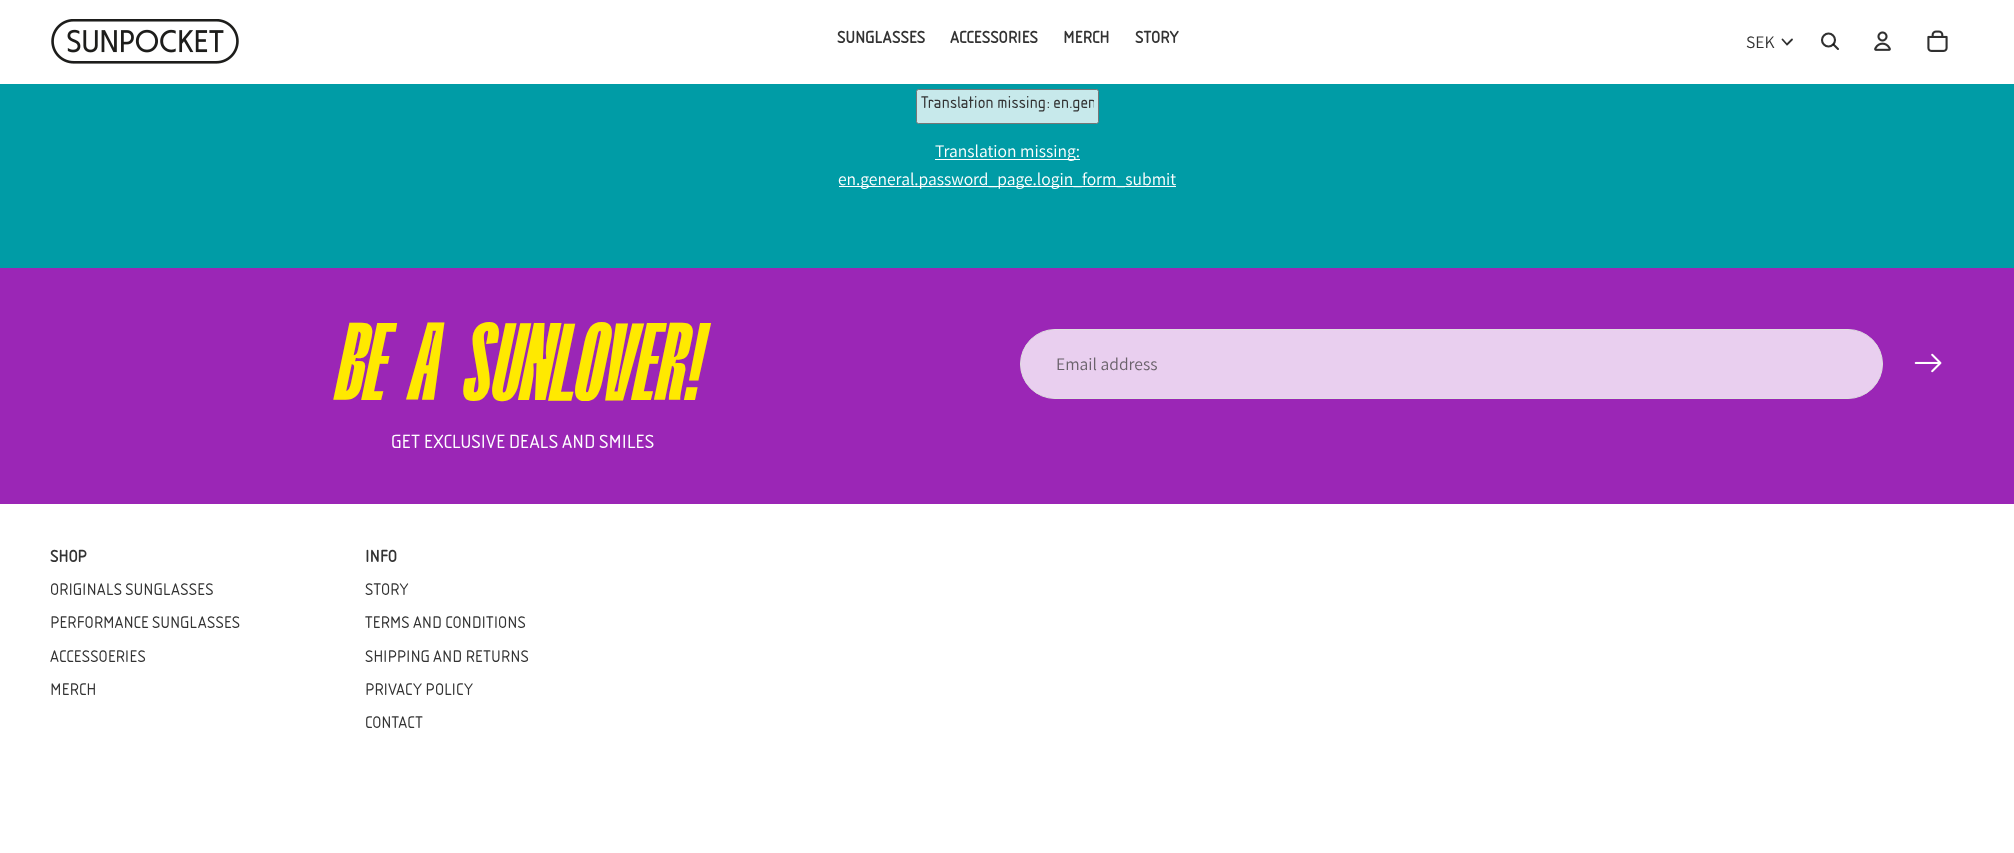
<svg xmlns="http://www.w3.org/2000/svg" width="2014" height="853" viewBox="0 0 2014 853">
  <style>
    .t1 { font: bold 17.5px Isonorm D; fill: #333; }
    .t2 { font: 17.5px Assistant; fill: #333; }
    .t3 { font: 17.5px Isonorm D; fill: #333; }
    .t4 { font: 17.5px Assistant; fill: #fff; }
    .t5 { font: 110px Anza; fill: #ffe900; }
    .t6 { font: 20px Isonorm D; fill: #fff; }
    .t7 { font: 17.5px Assistant; fill: #6a626b; }
  </style>
  <defs>
    <clipPath id="clip1"><rect x="921" y="96" width="173" height="22"/></clipPath>
  </defs>
  <rect width="100%" height="100%" fill="#fff"/>
  <image x="51" y="19" width="188" height="45" href="images/1.png"/>
  <text x="837" y="43" class="t1">SUNGLASSES</text>
  <text x="950" y="43" class="t1">ACCESSORIES</text>
  <text x="1063" y="43" class="t1">MERCH</text>
  <text x="1135" y="43" class="t1">STORY</text>
  <text x="1746" y="48" class="t2">SEK</text>
  <path d="M1792 39.5L1787 44.5L1782.5 39.5" fill="none" stroke="#303030" stroke-width="1.8" stroke-linecap="round" stroke-linejoin="round"/>
  <circle cx="1828.5" cy="40" r="6.5" fill="none" stroke="#303030" stroke-width="2.1"/>
  <path d="M1833.5 44.5L1838 49" fill="none" stroke="#000000cf" stroke-width="2.1" stroke-linecap="round" stroke-linejoin="round"/>
  <image x="1874" y="31" width="17" height="20" href="images/2.png"/>
  <image x="1927" y="30" width="21" height="22" href="images/3.png"/>
  <rect x="0" y="84" width="2014" height="184" fill="#009ca6"/>
  <rect x="916.5" y="89.5" width="182" height="34" rx="2" fill="#c7e9eb" stroke="#767676"/>
  <g clip-path="url(#clip1)">
    <text x="921" y="108" class="t3">Translation missing: en.gen</text>
  </g>
  <rect x="935" y="159" width="145" height="1" fill="#fff"/>
  <text x="935" y="157" class="t4">Translation missing:</text>
  <rect x="839" y="186" width="337" height="1" fill="#fff"/>
  <text x="838" y="185" class="t4">en.general.password_page.login_form_submit</text>
  <rect x="0" y="268" width="2014" height="236" fill="#9b26b6"/>
  <text x="339" y="400" class="t5">BE A SUNLOVER!</text>
  <text x="391" y="448" class="t6">GET EXCLUSIVE DEALS AND SMILES</text>
  <rect x="1020.5" y="329.5" width="862" height="69" rx="34.5" fill="#e9cfef" stroke="#dfdfdf"/>
  <text x="1056" y="370" class="t7">Email address</text>
  <image x="1914" y="353" width="28" height="20" href="images/4.png"/>
  <text x="50" y="562" class="t1">SHOP</text>
  <text x="50" y="595" class="t3">ORIGINALS SUNGLASSES</text>
  <text x="50" y="628" class="t3">PERFORMANCE SUNGLASSES</text>
  <text x="50" y="662" class="t3">ACCESSOERIES</text>
  <text x="50" y="695" class="t3">MERCH</text>
  <text x="365" y="562" class="t1">INFO</text>
  <text x="365" y="595" class="t3">STORY</text>
  <text x="365" y="628" class="t3">TERMS AND CONDITIONS</text>
  <text x="365" y="662" class="t3">SHIPPING AND RETURNS</text>
  <text x="365" y="695" class="t3">PRIVACY POLICY</text>
  <text x="365" y="728" class="t3">CONTACT</text>
</svg>
